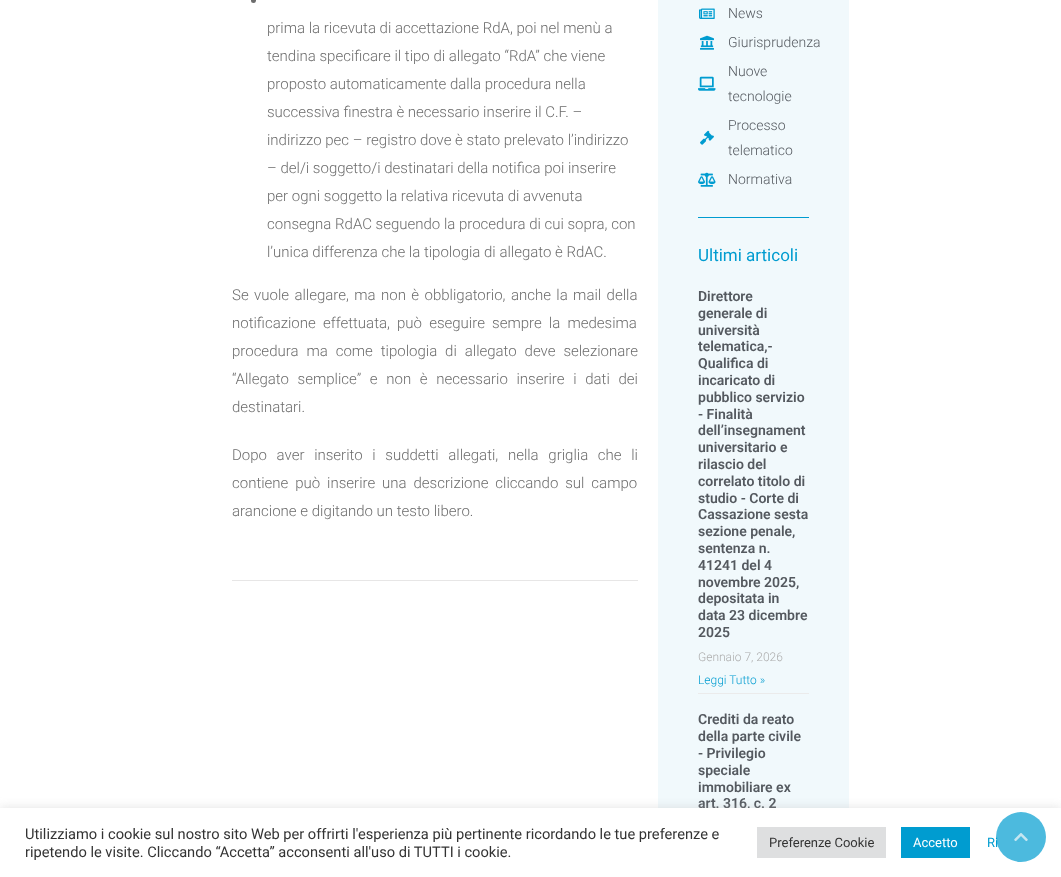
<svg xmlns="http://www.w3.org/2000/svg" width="1061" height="877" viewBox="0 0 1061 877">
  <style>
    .t1 { font: 300 15px Roboto; fill: #6d6d6d; }
    .t2 { font: 300 14px Roboto; fill: #54595f; }
    .t3 { font: 17px Roboto; fill: #009cd0; }
    .t4 { font: 600 14px Roboto; fill: #54595f; }
    .t5 { font: 300 12px Roboto; fill: #adadad; }
    .t6 { font: 300 12px Roboto; fill: #009cd0; }
    .t7 { font: 14.65px Roboto; fill: #333; }
    .t8 { font: 13px Roboto; fill: #333; }
    .t9 { font: 13px Roboto; fill: #fff; }
    .t10 { font: 13px Roboto; fill: #009cd0; }
  </style>
  <rect width="100%" height="100%" fill="#fff"/>
  <circle cx="253.5" cy="0.5" r="2.5" fill="#6d6d6d"/>
  <text x="267" y="33" class="t1">prima la ricevuta di accettazione RdA, poi nel menù a</text>
  <text x="267" y="61" class="t1">tendina specificare il tipo di allegato “RdA” che viene</text>
  <text x="267" y="89" class="t1">proposto automaticamente dalla procedura nella</text>
  <text x="267" y="117" class="t1">successiva finestra è necessario inserire il C.F. –</text>
  <text x="267" y="145" class="t1">indirizzo pec – registro dove è stato prelevato l’indirizzo</text>
  <text x="267" y="173" class="t1">– del/i soggetto/i destinatari della notifica poi inserire</text>
  <text x="267" y="201" class="t1">per ogni soggetto la relativa ricevuta di avvenuta</text>
  <text x="267" y="229" class="t1">consegna RdAC seguendo la procedura di cui sopra, con</text>
  <text x="267" y="257" class="t1">l’unica differenza che la tipologia di allegato è RdAC.</text>
  <text x="232" y="300" word-spacing="1.75" class="t1">Se vuole allegare, ma non è obbligatorio, anche la mail della</text>
  <text x="232" y="328" word-spacing="3.5" class="t1">notificazione effettuata, può eseguire sempre la medesima</text>
  <text x="232" y="356" word-spacing="4.25" class="t1">procedura ma come tipologia di allegato deve selezionare</text>
  <text x="232" y="384" word-spacing="5" class="t1">“Allegato semplice” e non è necessario inserire i dati dei</text>
  <text x="232" y="412" class="t1">destinatari.</text>
  <text x="232" y="460" word-spacing="6" class="t1">Dopo aver inserito i suddetti allegati, nella griglia che li</text>
  <text x="232" y="488" word-spacing="3.25" class="t1">contiene può inserire una descrizione cliccando sul campo</text>
  <text x="232" y="516" class="t1">arancione e digitando un testo libero.</text>
  <rect x="232" y="580" width="406" height="1" fill="#e7e6e6"/>
  <rect x="658" y="0" width="191" height="808" fill="#f1f9fc"/>
  <image x="699" y="8" width="16" height="11" href="images/1.png"/>
  <text x="728" y="18" class="t2">News</text>
  <image x="700" y="35" width="14" height="15" href="images/2.png"/>
  <text x="728" y="47" class="t2">Giurisprudenza</text>
  <image x="698" y="76" width="18" height="15" href="images/3.png"/>
  <text x="728" y="76" class="t2">Nuove</text>
  <text x="728" y="101" class="t2">tecnologie</text>
  <image x="700" y="130" width="14" height="15" href="images/4.png"/>
  <text x="728" y="130" class="t2">Processo</text>
  <text x="728" y="155" class="t2">telematico</text>
  <image x="698" y="172" width="18" height="15" href="images/5.png"/>
  <text x="728" y="184" class="t2">Normativa</text>
  <rect x="698" y="217" width="111" height="1" fill="#009cd0"/>
  <text x="698" y="261" class="t3">Ultimi articoli</text>
  <rect x="698" y="693" width="111" height="1" fill="#ebebeb"/>
  <text x="698" y="301" class="t4">Direttore</text>
  <text x="698" y="318" class="t4">generale di</text>
  <text x="698" y="335" class="t4">università</text>
  <text x="698" y="351" class="t4">telematica,-</text>
  <text x="698" y="368" class="t4">Qualifica di</text>
  <text x="698" y="385" class="t4">incaricato di</text>
  <text x="698" y="402" class="t4">pubblico servizio</text>
  <text x="698" y="419" class="t4">- Finalità</text>
  <text x="698" y="435" class="t4">dell’insegnament</text>
  <text x="698" y="452" class="t4">universitario e</text>
  <text x="698" y="469" class="t4">rilascio del</text>
  <text x="698" y="486" class="t4">correlato titolo di</text>
  <text x="698" y="503" class="t4">studio - Corte di</text>
  <text x="698" y="519" class="t4">Cassazione sesta</text>
  <text x="698" y="536" class="t4">sezione penale,</text>
  <text x="698" y="553" class="t4">sentenza n.</text>
  <text x="698" y="570" class="t4">41241 del 4</text>
  <text x="698" y="587" class="t4">novembre 2025,</text>
  <text x="698" y="603" class="t4">depositata in</text>
  <text x="698" y="620" class="t4">data 23 dicembre</text>
  <text x="698" y="637" class="t4">2025</text>
  <text x="698" y="661" class="t5">Gennaio 7, 2026</text>
  <text x="698" y="684" class="t6">Leggi Tutto »</text>
  <text x="698" y="724" class="t4">Crediti da reato</text>
  <text x="698" y="741" class="t4">della parte civile</text>
  <text x="698" y="758" class="t4">- Privilegio</text>
  <text x="698" y="775" class="t4">speciale</text>
  <text x="698" y="792" class="t4">immobiliare ex</text>
  <text x="698" y="808" class="t4">art. 316, c. 2</text>
  <rect x="0" y="807" width="1061" height="69" fill="#acabab4d" filter="blur(5px)"/>
  <rect x="0" y="808" width="1061" height="69" fill="#fff"/>
  <text x="25" y="839" class="t7">Utilizziamo i cookie sul nostro sito Web per offrirti l'esperienza più pertinente ricordando le tue preferenze e</text>
  <text x="25" y="857" class="t7">ripetendo le visite. Cliccando “Accetta” acconsenti all'uso di TUTTI i cookie.</text>
  <rect x="757" y="827" width="129" height="31" fill="#dedfe0"/>
  <text x="769" y="847" class="t8">Preferenze Cookie</text>
  <rect x="901" y="827" width="69" height="31" fill="#009cd0"/>
  <text x="913" y="847" class="t9">Accetto</text>
  <text x="987" y="847" class="t10">Ri</text>
  <circle cx="1021" cy="837" r="25" fill="#009cd0b3"/>
  <image x="1014" y="833" width="14" height="9" href="images/6.png"/>
</svg>
